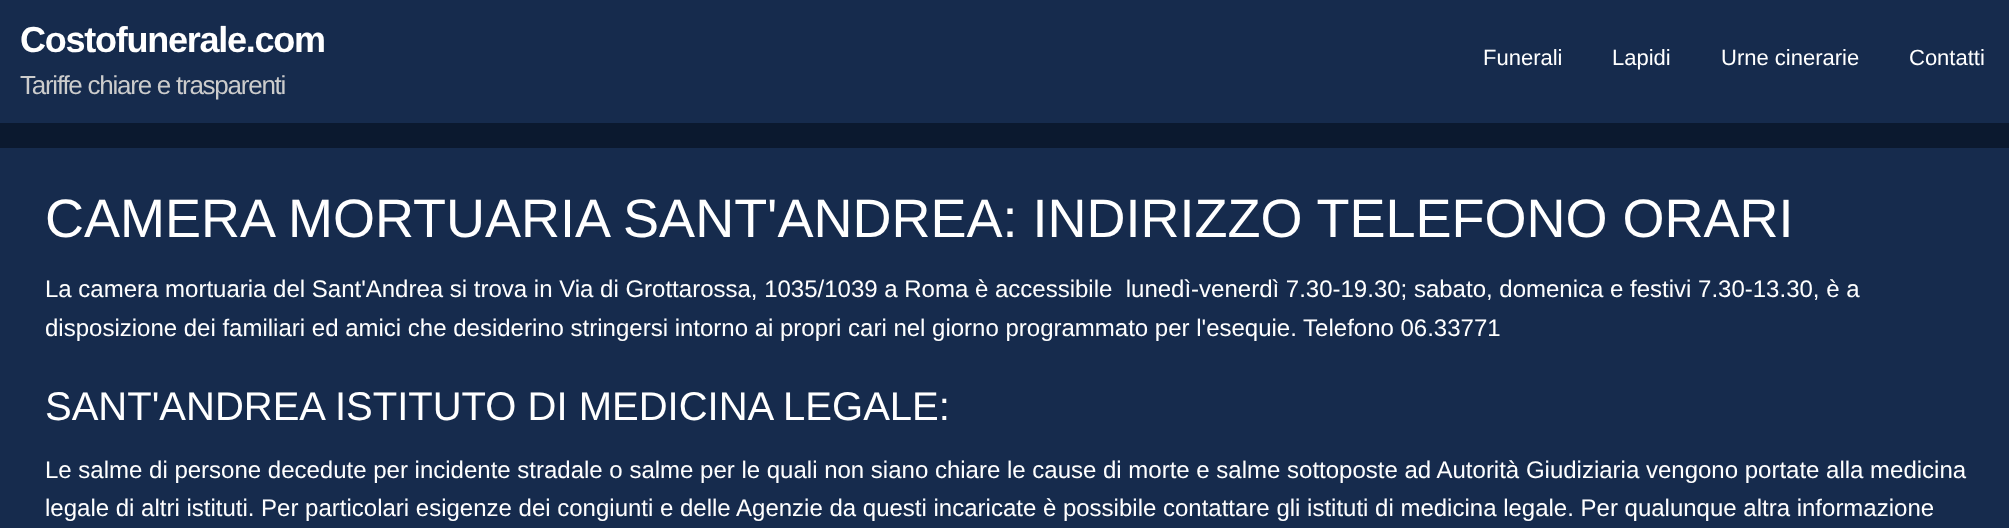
<svg xmlns="http://www.w3.org/2000/svg" width="2009" height="528" viewBox="0 0 2009 528">
  <style>
    .t1 { font: bold 36px Liberation Sans; letter-spacing: -1.25px; fill: #fff; }
    .t2 { font: 26px Liberation Sans; letter-spacing: -1.25px; fill: #ccc; }
    .t3 { font: 22px Liberation Sans; fill: #fff; }
    .t4 { font: 54px Liberation Sans; fill: #fff; }
    .t5 { font: 24px Liberation Sans; fill: #fff; }
    .t6 { font: 40px Liberation Sans; fill: #fff; }
  </style>
  <rect width="100%" height="100%" fill="#0b192f"/>
  <rect x="0" y="0" width="2009" height="123" fill="#162b4d"/>
  <text x="20" y="52" class="t1">Costofunerale.com</text>
  <text x="20" y="94" class="t2">Tariffe chiare e trasparenti</text>
  <text x="1483" y="65" class="t3">Funerali</text>
  <text x="1612" y="65" class="t3">Lapidi</text>
  <text x="1721" y="65" class="t3">Urne cinerarie</text>
  <text x="1909" y="65" class="t3">Contatti</text>
  <rect x="0" y="148" width="2009" height="380" fill="#162b4d"/>
  <text x="45" y="237" class="t4">CAMERA MORTUARIA SANT'ANDREA: INDIRIZZO TELEFONO ORARI</text>
  <text x="45" y="297" class="t5" xml:space="preserve">La camera mortuaria del Sant'Andrea si trova in Via di Grottarossa, 1035/1039 a Roma è accessibile  lunedì-venerdì 7.30-19.30; sabato, domenica e festivi 7.30-13.30, è a</text>
  <text x="45" y="336" class="t5">disposizione dei familiari ed amici che desiderino stringersi intorno ai propri cari nel giorno programmato per l'esequie. Telefono 06.33771</text>
  <text x="45" y="420" class="t6">SANT'ANDREA ISTITUTO DI MEDICINA LEGALE:</text>
  <text x="45" y="478" class="t5">Le salme di persone decedute per incidente stradale o salme per le quali non siano chiare le cause di morte e salme sottoposte ad Autorità Giudiziaria vengono portate alla medicina</text>
  <text x="45" y="516" class="t5">legale di altri istituti. Per particolari esigenze dei congiunti e delle Agenzie da questi incaricate è possibile contattare gli istituti di medicina legale. Per qualunque altra informazione</text>
</svg>
